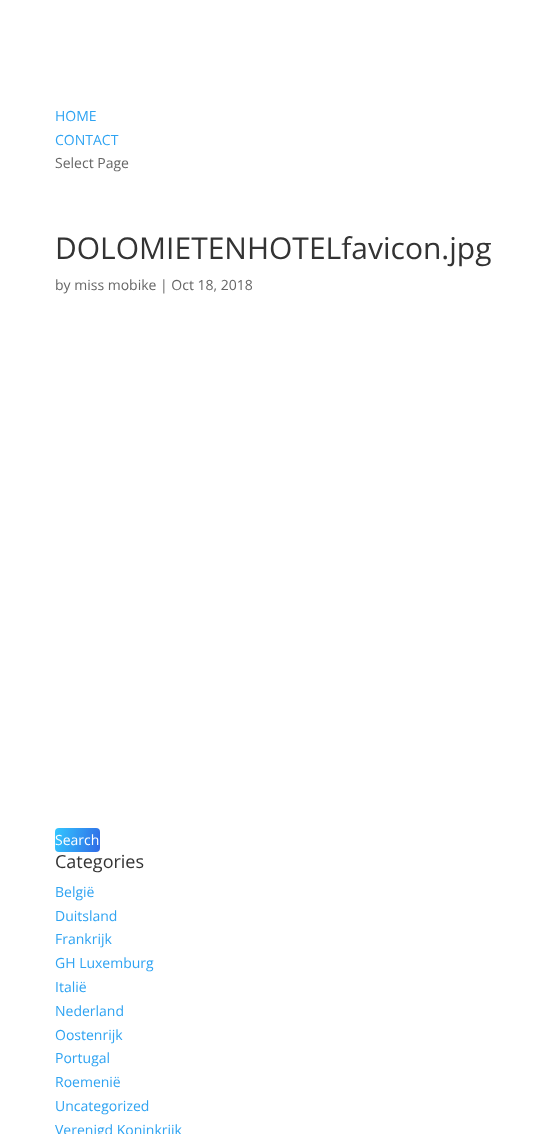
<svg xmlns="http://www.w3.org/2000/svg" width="552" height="1134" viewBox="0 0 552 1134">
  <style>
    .t1 { font: 14px Open Sans; fill: #2ea3f2; }
    .t2 { font: 14px Open Sans; fill: #666; }
    .t3 { font: 30px Open Sans; fill: #333; }
    .t4 { font: 14px Open Sans; fill: #fff; }
    .t5 { font: 18px Open Sans; fill: #333; }
  </style>
  <defs>
    <linearGradient id="g1" gradientUnits="userSpaceOnUse" x1="54" y1="834" x2="101" y2="846"><stop offset="0" stop-color="#33c6ff"/><stop offset="1" stop-color="#306be6"/></linearGradient>
  </defs>
  <rect width="100%" height="100%" fill="#fff"/>
  <text x="55" y="121" class="t1">HOME</text>
  <text x="55" y="145" class="t1">CONTACT</text>
  <text x="55" y="168" class="t2">Select Page</text>
  <text x="55" y="259" class="t3">DOLOMIETENHOTELfavicon.jpg</text>
  <text x="55" y="290" class="t2">by miss mobike | Oct 18, 2018</text>
  <rect x="55" y="828" width="45" height="24" rx="4" fill="url(#g1)"/>
  <text x="55" y="845" class="t4">Search</text>
  <text x="55" y="868" class="t5">Categories</text>
  <text x="55" y="897" class="t1">België</text>
  <text x="55" y="921" class="t1">Duitsland</text>
  <text x="55" y="944" class="t1">Frankrijk</text>
  <text x="55" y="968" class="t1">GH Luxemburg</text>
  <text x="55" y="992" class="t1">Italië</text>
  <text x="55" y="1016" class="t1">Nederland</text>
  <text x="55" y="1040" class="t1">Oostenrijk</text>
  <text x="55" y="1063" class="t1">Portugal</text>
  <text x="55" y="1087" class="t1">Roemenië</text>
  <text x="55" y="1111" class="t1">Uncategorized</text>
  <text x="55" y="1135" class="t1">Verenigd Koninkrijk</text>
</svg>
